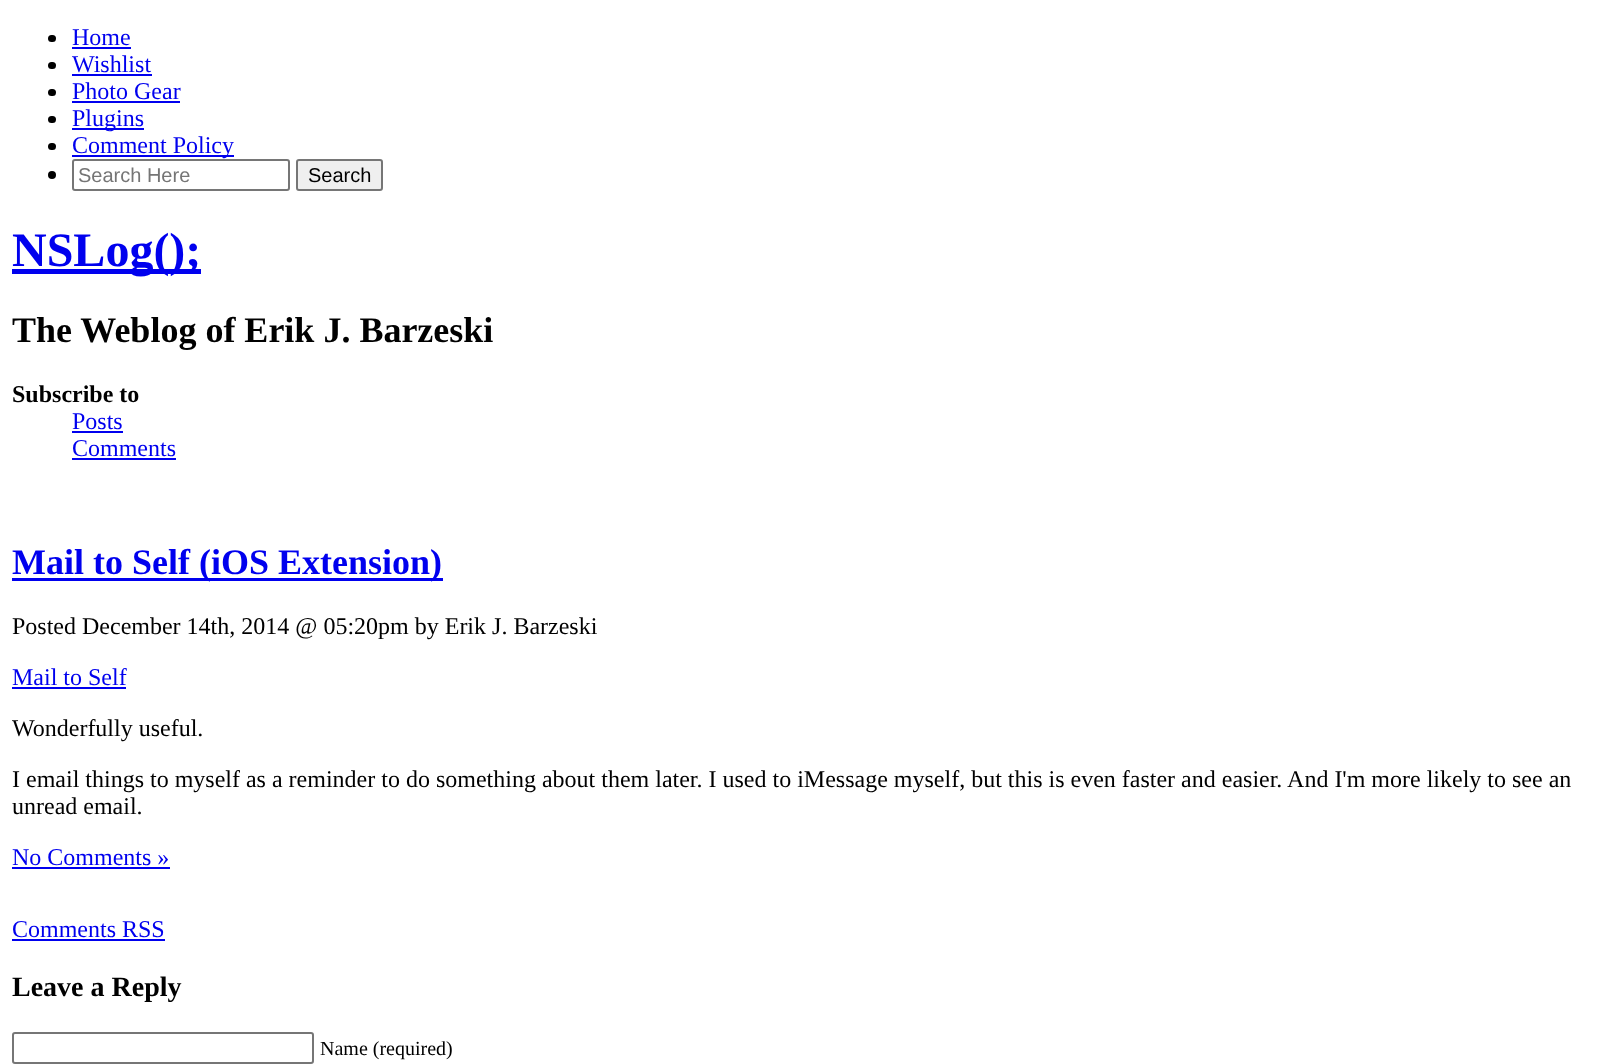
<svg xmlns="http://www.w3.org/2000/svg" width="1598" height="1064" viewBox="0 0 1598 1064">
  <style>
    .t1 { font: 24px Liberation Serif; fill: #00e; }
    .t2 { font: 20px Liberation Sans; fill: #757575; }
    .t3 { font: 20px Liberation Sans; fill: #000; }
    .t4 { font: bold 48px Liberation Serif; fill: #00e; }
    .t5 { font: bold 36px Liberation Serif; fill: #000; }
    .t6 { font: bold 24px Liberation Serif; fill: #000; }
    .t7 { font: bold 36px Liberation Serif; fill: #00e; }
    .t8 { font: 24px Liberation Serif; fill: #000; }
    .t9 { font: bold 28px Liberation Serif; fill: #000; }
    .t10 { font: 20px Liberation Serif; fill: #000; }
  </style>
  <rect width="100%" height="100%" fill="#fff"/>
  <rect x="48" y="35" width="8" height="7" rx="3.5" fill="#000"/>
  <text x="72" y="45" class="t1">Home</text>
  <rect x="72" y="47" width="59" height="2" fill="#00e"/>
  <rect x="48" y="62" width="8" height="7" rx="3.5" fill="#000"/>
  <text x="72" y="72" class="t1">Wishlist</text>
  <rect x="72" y="74" width="80" height="2" fill="#00e"/>
  <rect x="48" y="89" width="8" height="7" rx="3.5" fill="#000"/>
  <text x="72" y="99" class="t1">Photo Gear</text>
  <rect x="72" y="101" width="108" height="2" fill="#00e"/>
  <rect x="48" y="116" width="8" height="7" rx="3.5" fill="#000"/>
  <rect x="72" y="128" width="72" height="2" fill="#00e"/>
  <text x="72" y="126" class="t1">Plugins</text>
  <rect x="48" y="143" width="8" height="7" rx="3.5" fill="#000"/>
  <rect x="72" y="155" width="162" height="2" fill="#00e"/>
  <text x="72" y="153" class="t1">Comment Policy</text>
  <circle cx="52" cy="175" r="4" fill="#000"/>
  <rect x="73" y="160" width="216" height="30" rx="2" fill="none" stroke="#767676" stroke-width="2"/>
  <text x="78" y="182" class="t2">Search Here</text>
  <rect x="297" y="160" width="85" height="30" rx="2" fill="#efefef" stroke="#767676" stroke-width="2"/>
  <text x="308" y="182" class="t3">Search</text>
  <rect x="12" y="269" width="189" height="5" fill="#00e"/>
  <text x="12" y="266" class="t4">NSLog();</text>
  <text x="12" y="342" class="t5">The Weblog of Erik J. Barzeski</text>
  <text x="12" y="402" class="t6">Subscribe to</text>
  <text x="72" y="429" class="t1">Posts</text>
  <rect x="72" y="431" width="51" height="2" fill="#00e"/>
  <text x="72" y="456" class="t1">Comments</text>
  <rect x="72" y="458" width="104" height="2" fill="#00e"/>
  <rect x="12" y="578" width="431" height="3" fill="#00e"/>
  <text x="12" y="574" class="t7">Mail to Self (iOS Extension)</text>
  <text x="12" y="634" class="t8">Posted December 14th, 2014 @ 05:20pm by Erik J. Barzeski</text>
  <text x="12" y="685" class="t1">Mail to Self</text>
  <rect x="12" y="687" width="114" height="2" fill="#00e"/>
  <text x="12" y="736" class="t8">Wonderfully useful.</text>
  <text x="12" y="787" class="t8">I email things to myself as a reminder to do something about them later. I used to iMessage myself, but this is even faster and easier. And I'm more likely to see an</text>
  <text x="12" y="814" class="t8">unread email.</text>
  <text x="12" y="865" class="t1">No Comments »</text>
  <rect x="12" y="867" width="158" height="2" fill="#00e"/>
  <text x="12" y="937" class="t1">Comments RSS</text>
  <rect x="12" y="939" width="153" height="2" fill="#00e"/>
  <text x="12" y="996" class="t9">Leave a Reply</text>
  <rect x="13" y="1033" width="300" height="30" rx="2" fill="none" stroke="#767676" stroke-width="2"/>
  <text x="320" y="1055" class="t10">Name (required)</text>
</svg>
